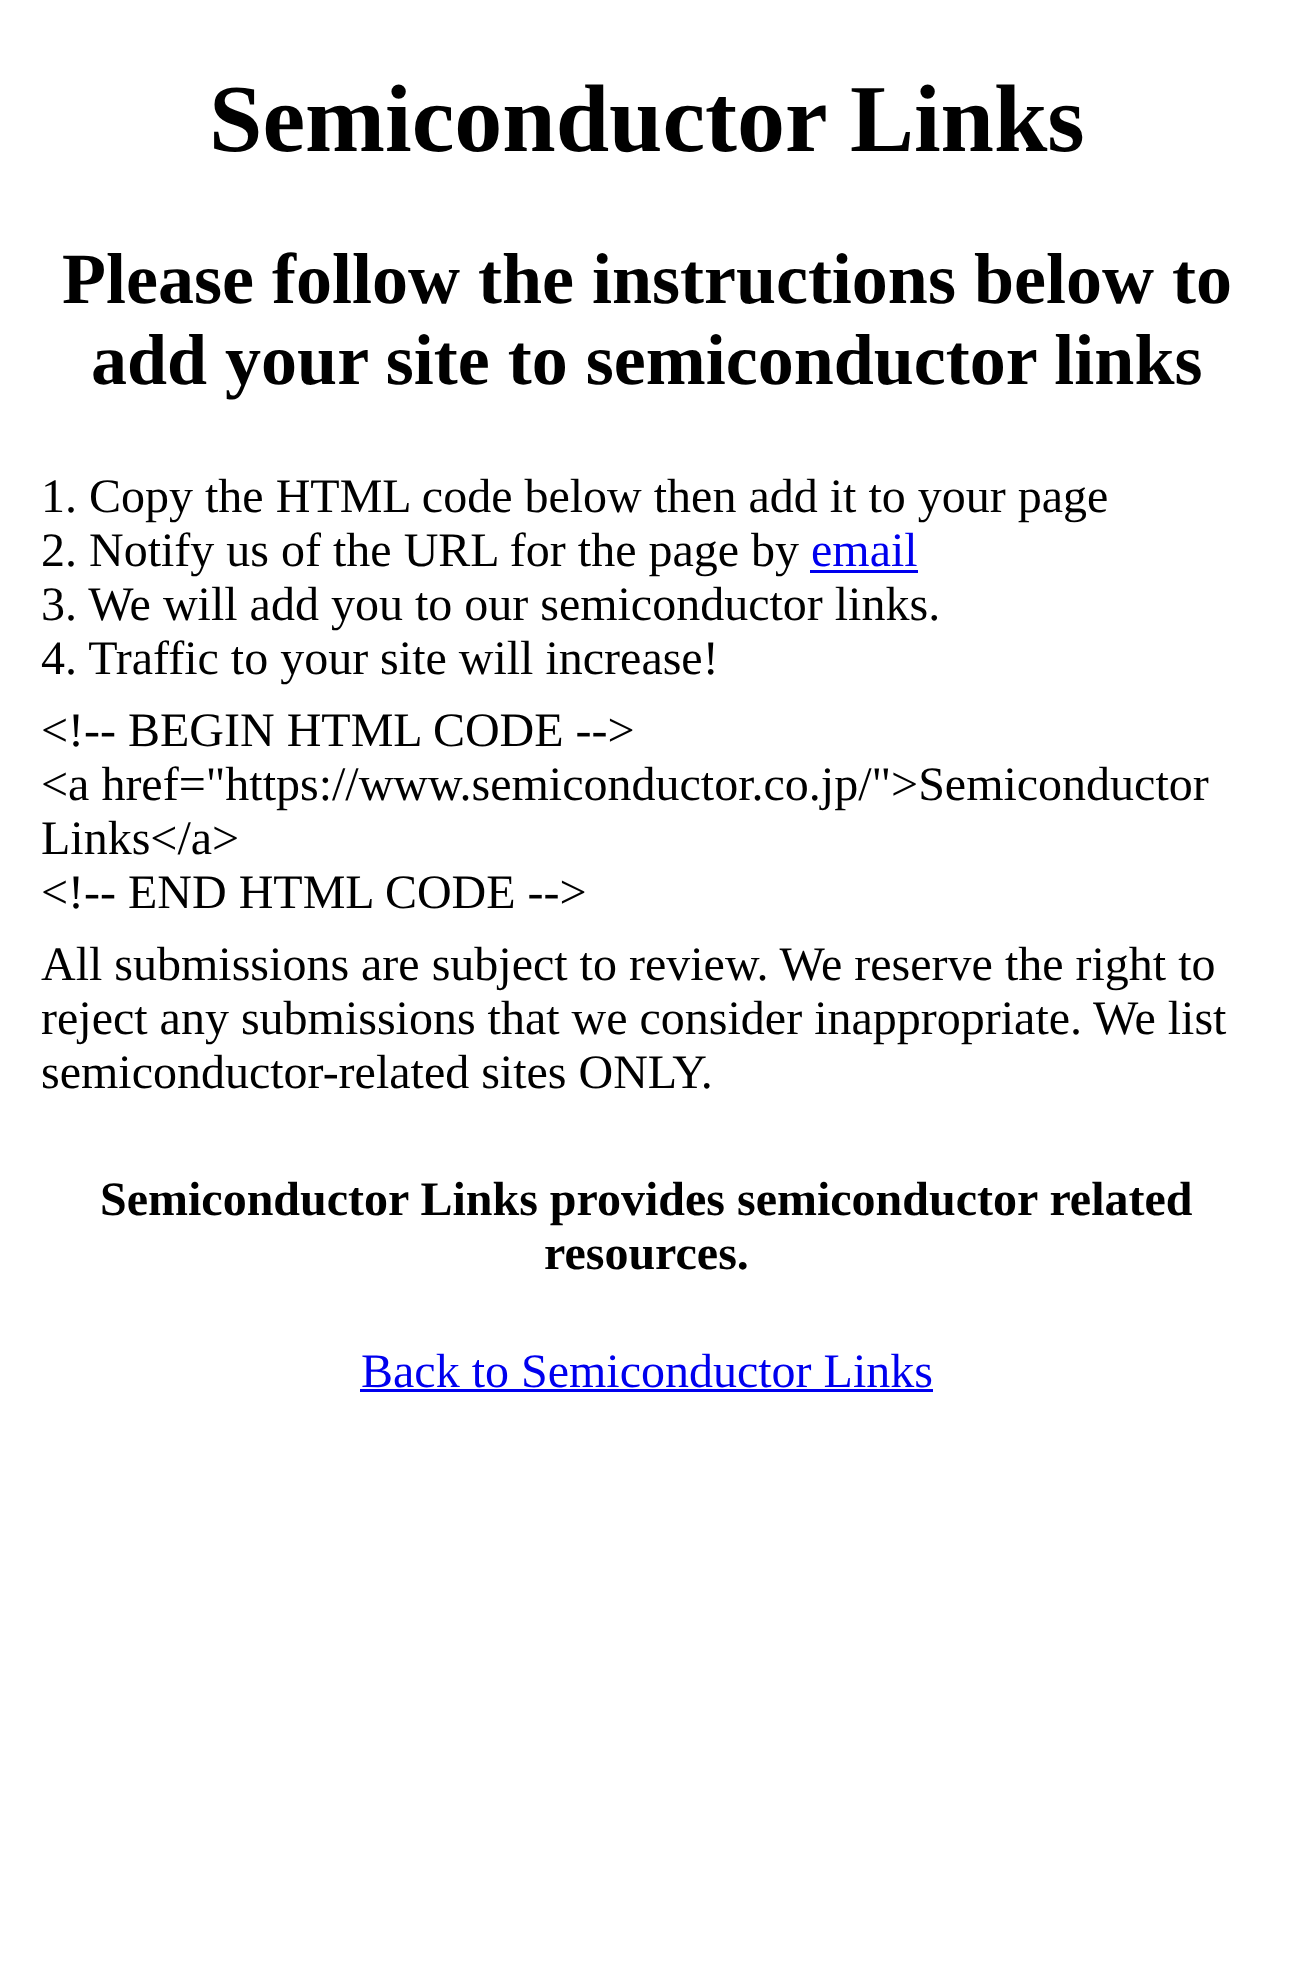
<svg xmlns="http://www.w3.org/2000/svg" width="1291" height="1963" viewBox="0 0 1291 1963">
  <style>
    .t1 { font: bold 96px Liberation Serif; fill: #000; }
    .t2 { font: bold 72px Liberation Serif; fill: #000; }
    .t3 { font: 48px Liberation Serif; fill: #000; }
    .t4 { font: 48px Liberation Serif; fill: #00e; }
    .t5 { font: bold 48px Liberation Serif; fill: #000; }
  </style>
  <rect width="100%" height="100%" fill="#fff"/>
  <text x="209" y="151" class="t1">Semiconductor Links</text>
  <text x="62" y="303" class="t2">Please follow the instructions below to</text>
  <text x="91" y="384" class="t2">add your site to semiconductor links</text>
  <text x="41" y="512" class="t3">1. Copy the HTML code below then add it to your page</text>
  <text x="41" y="566" class="t3">2. Notify us of the URL for the page by</text>
  <text x="811" y="566" class="t4">email</text>
  <rect x="810" y="570" width="108" height="3" fill="#00e"/>
  <text x="41" y="620" class="t3">3. We will add you to our semiconductor links.</text>
  <text x="41" y="674" class="t3">4. Traffic to your site will increase!</text>
  <text x="41" y="746" class="t3">&lt;!-- BEGIN HTML CODE --&gt;</text>
  <text x="41" y="800" class="t3">&lt;a href="https://www.semiconductor.co.jp/"&gt;Semiconductor</text>
  <text x="41" y="854" class="t3">Links&lt;/a&gt;</text>
  <text x="41" y="908" class="t3">&lt;!-- END HTML CODE --&gt;</text>
  <text x="41" y="980" class="t3">All submissions are subject to review. We reserve the right to</text>
  <text x="41" y="1034" class="t3">reject any submissions that we consider inappropriate.</text>
  <text x="1093" y="1034" class="t3">We list</text>
  <text x="41" y="1088" class="t3">semiconductor-related sites ONLY.</text>
  <text x="100" y="1215" class="t5">Semiconductor Links provides semiconductor related</text>
  <text x="544" y="1269" class="t5">resources.</text>
  <text x="361" y="1387" class="t4">Back to Semiconductor Links</text>
  <rect x="360" y="1389" width="573" height="3" fill="#00e"/>
</svg>
